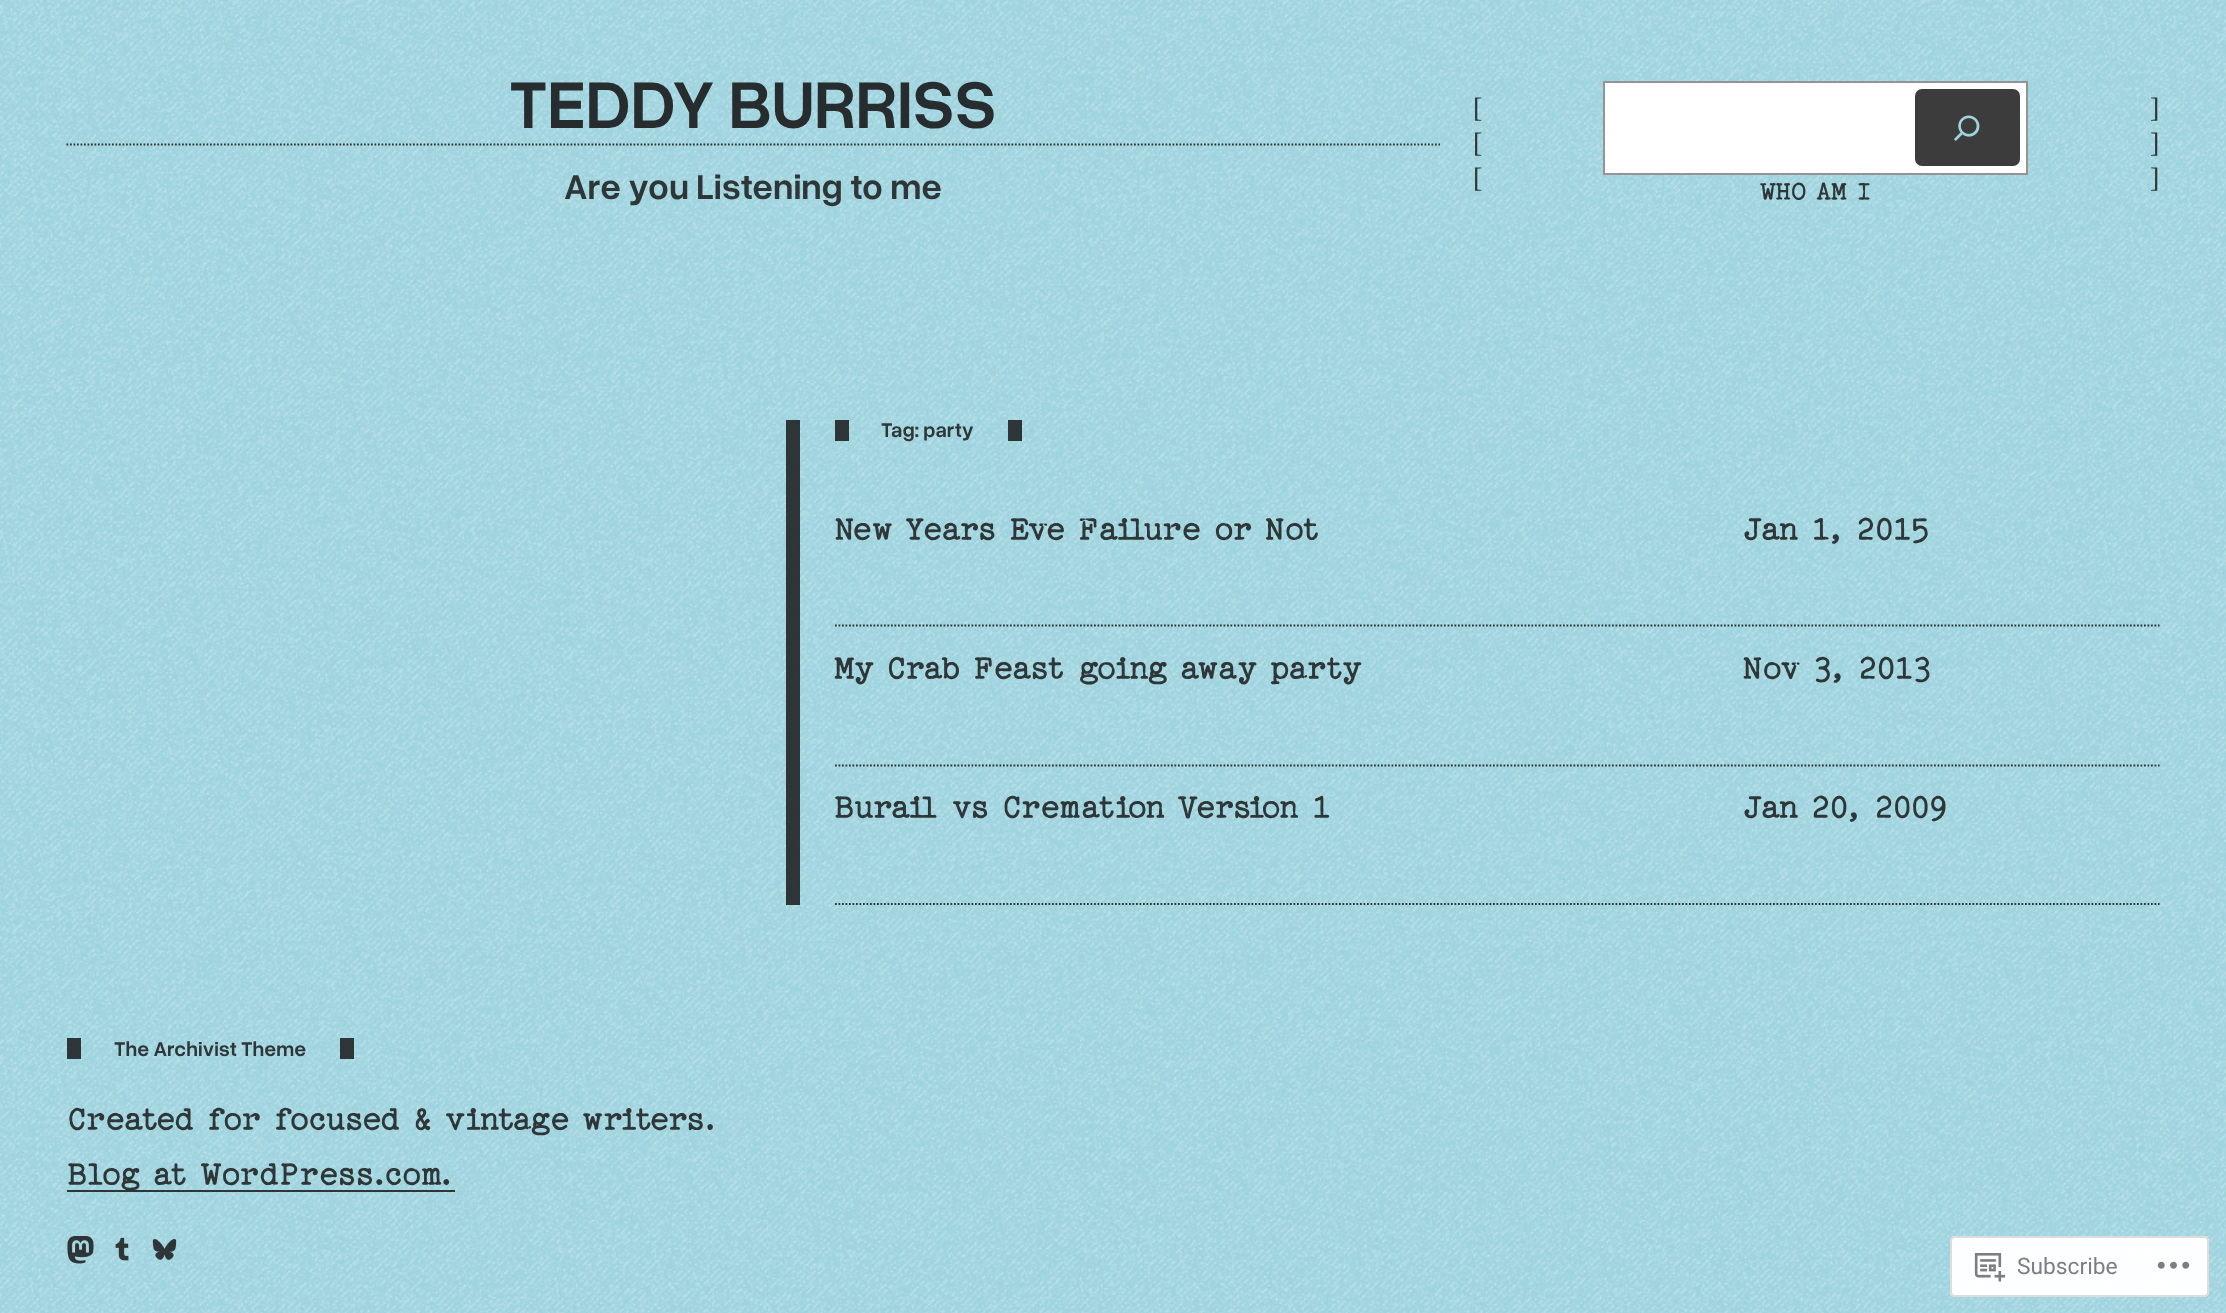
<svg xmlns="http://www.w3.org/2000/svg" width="2226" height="1313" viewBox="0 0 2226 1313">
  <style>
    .t1 { font: 600 70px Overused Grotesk; fill: #272c2e; }
    .t2 { font: 600 36.4px Overused Grotesk; fill: #2e3638; }
    .t3 { font: 28px Liberation Serif; fill: #2e3638; }
    .t4 { font: 28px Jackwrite; fill: #2e3638; }
    .t5 { font: 600 21px Overused Grotesk; fill: #2e3638; }
    .t6 { font: 36.4px Jackwrite; fill: #2e3638; }
    .t7 { font: 22.75px Roboto; fill: #7b7f84; }
  </style>
  <rect width="100%" height="100%" fill="#9fd4df"/>
  <image x="0" y="0" width="2226" height="1313" href="images/1.png"/>
  <path d="M66.5 144.5H1440" fill="none" stroke="#19191ad9" stroke-width="1.8" stroke-dasharray="1.75 1.75"/>
  <text x="509" y="128" class="t1">TEDDY BURRISS</text>
  <text x="564" y="199" class="t2">Are you Listening to me</text>
  <text x="1473" y="117" class="t3">[</text>
  <text x="1473" y="152" class="t3">[</text>
  <text x="1473" y="187" class="t3">[</text>
  <rect x="1604" y="82" width="423" height="92" fill="#fff" stroke="#949494" stroke-width="2"/>
  <rect x="1915" y="89" width="105" height="77" rx="7" fill="#3c3c3c"/>
  <image x="1954" y="115" width="26" height="26" href="images/2.png"/>
  <text x="1760" y="199" class="t4">WHO AM I</text>
  <text x="2150" y="117" class="t3">]</text>
  <text x="2150" y="152" class="t3">]</text>
  <text x="2150" y="187" class="t3">]</text>
  <rect x="786" y="420" width="14" height="485" fill="#19191ad9"/>
  <rect x="1008" y="420" width="14" height="21" fill="#19191ad9"/>
  <rect x="835" y="420" width="14" height="21" fill="#19191ad9"/>
  <text x="881" y="437" class="t5">Tag: party</text>
  <path d="M835 625.5H2159.5" fill="none" stroke="#19191ad9" stroke-width="1.8" stroke-dasharray="1.75 1.75"/>
  <text x="834" y="539" class="t6">New Years Eve Failure or Not</text>
  <text x="1742" y="539" class="t6">Jan 1, 2015</text>
  <path d="M835 765.5H2159.5" fill="none" stroke="#19191ad9" stroke-width="1.8" stroke-dasharray="1.75 1.75"/>
  <text x="834" y="678" class="t6">My Crab Feast going away party</text>
  <text x="1742" y="678" class="t6">Nov 3, 2013</text>
  <path d="M835 904H2159.5" fill="none" stroke="#19191ad9" stroke-width="1.8" stroke-dasharray="1.75 1.75"/>
  <text x="834" y="817" class="t6">Burail vs Cremation Version 1</text>
  <text x="1742" y="817" class="t6">Jan 20, 2009</text>
  <rect x="340" y="1038" width="14" height="21" fill="#19191ad9"/>
  <rect x="67" y="1038" width="14" height="21" fill="#19191ad9"/>
  <text x="114" y="1056" class="t5">The Archivist Theme</text>
  <text x="67" y="1129" class="t6">Created for focused &amp; vintage writers.</text>
  <rect x="67" y="1190" width="388" height="2" fill="#19191ad9"/>
  <text x="67" y="1184" class="t6">Blog at WordPress.com.</text>
  <image x="67" y="1236" width="27" height="28" href="images/3.png"/>
  <image x="115" y="1237" width="14" height="24" href="images/4.png"/>
  <image x="152" y="1239" width="25" height="21" href="images/5.png"/>
  <rect x="1950" y="1236" width="259" height="61" rx="5" fill="#fffffffa"/>
  <rect x="1951" y="1237" width="257" height="59" rx="4" fill="none" stroke="#dcdcdefa" stroke-width="2"/>
  <image x="1974" y="1253" width="32" height="29" href="images/6.png"/>
  <text x="2017" y="1274" class="t7">Subscribe</text>
  <image x="2157" y="1261" width="33" height="8" href="images/7.png"/>
</svg>
